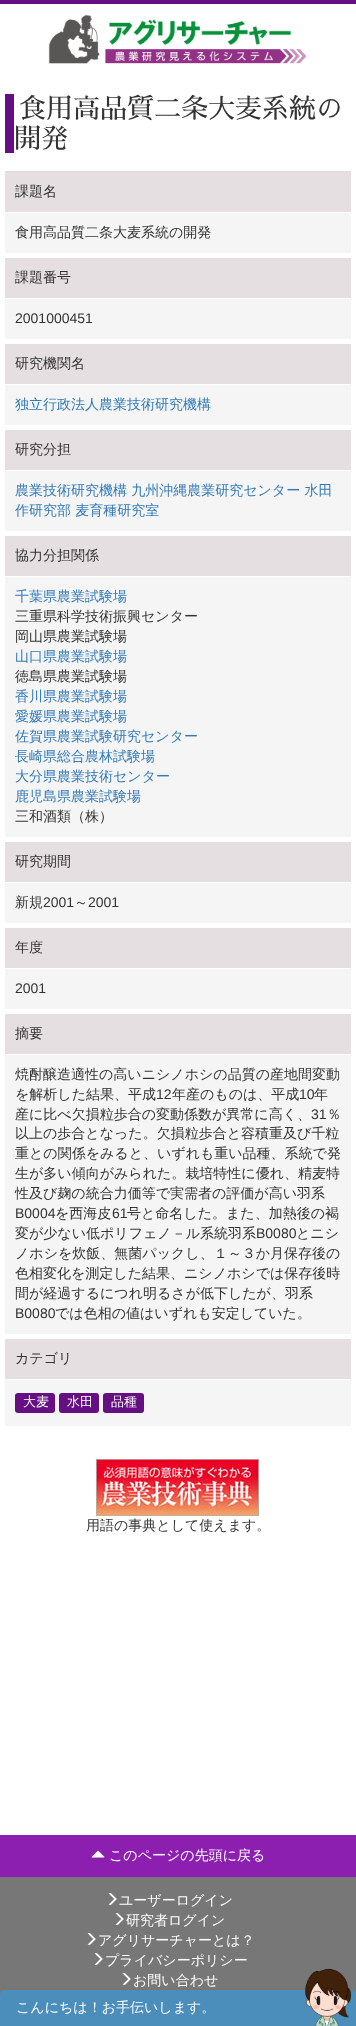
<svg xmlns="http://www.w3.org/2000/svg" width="356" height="2026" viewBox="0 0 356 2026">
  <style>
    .t1 { font: 27px Sawarabi Mincho; fill: #333; }
    .t2 { font: 500 14px WenQuanYi Zen Hei; fill: #333; }
    .t3 { font: 14px Liberation Sans; fill: #333; }
    .t4 { font: 500 14px WenQuanYi Zen Hei; fill: #337ab7; }
    .t5 { font: 500 13px WenQuanYi Zen Hei; fill: #fff; }
    .t6 { font: 500 14px WenQuanYi Zen Hei; fill: #fff; }
  </style>
  <rect width="100%" height="100%" fill="#fff"/>
  <rect x="0" y="0" width="356" height="4" fill="#660f83"/>
  <image x="48" y="14" width="259" height="50" href="images/1.png"/>
  <rect x="5" y="94" width="9" height="59" fill="#660f83"/>
  <text x="19" y="118" class="t1">食用高品質二条大麦系統の</text>
  <text x="14" y="148" class="t1">開発</text>
  <rect x="5" y="172" width="346" height="40" fill="#e6dfe1"/>
  <rect x="5" y="171" width="346" height="1" fill="#ddd"/>
  <text x="15" y="196" class="t2">課題名</text>
  <rect x="5" y="213" width="346" height="40" fill="#f5f5f5"/>
  <text x="15" y="237" class="t2">食用高品質二条大麦系統の開発</text>
  <rect x="5" y="258" width="346" height="40" fill="#e6dfe1"/>
  <text x="15" y="282" class="t2">課題番号</text>
  <rect x="5" y="299" width="346" height="40" fill="#f5f5f5"/>
  <text x="15" y="323" class="t3">2001000451</text>
  <rect x="5" y="344" width="346" height="40" fill="#e6dfe1"/>
  <text x="15" y="368" class="t2">研究機関名</text>
  <rect x="5" y="385" width="346" height="40" fill="#f5f5f5"/>
  <text x="15" y="409" class="t4">独立行政法人農業技術研究機構</text>
  <rect x="5" y="430" width="346" height="40" fill="#e6dfe1"/>
  <text x="15" y="454" class="t2">研究分担</text>
  <rect x="5" y="471" width="346" height="60" fill="#f5f5f5"/>
  <text x="15" y="495" class="t4">農業技術研究機構 九州沖縄農業研究センター 水田</text>
  <text x="15" y="515" class="t4">作研究部 麦育種研究室</text>
  <rect x="5" y="536" width="346" height="40" fill="#e6dfe1"/>
  <text x="15" y="560" class="t2">協力分担関係</text>
  <rect x="5" y="577" width="346" height="260" fill="#f5f5f5"/>
  <text x="15" y="601" class="t4">千葉県農業試験場</text>
  <text x="15" y="621" class="t2">三重県科学技術振興センター</text>
  <text x="15" y="641" class="t2">岡山県農業試験場</text>
  <text x="15" y="661" class="t4">山口県農業試験場</text>
  <text x="15" y="681" class="t2">徳島県農業試験場</text>
  <text x="15" y="701" class="t4">香川県農業試験場</text>
  <text x="15" y="721" class="t4">愛媛県農業試験場</text>
  <text x="15" y="741" class="t4">佐賀県農業試験研究センター</text>
  <text x="15" y="761" class="t4">長崎県総合農林試験場</text>
  <text x="15" y="781" class="t4">大分県農業技術センター</text>
  <text x="15" y="801" class="t4">鹿児島県農業試験場</text>
  <text x="15" y="821" class="t2">三和酒類（株）</text>
  <rect x="5" y="842" width="346" height="40" fill="#e6dfe1"/>
  <text x="15" y="866" class="t2">研究期間</text>
  <rect x="5" y="883" width="346" height="40" fill="#f5f5f5"/>
  <text x="15" y="907" class="t2">新規</text>
  <text x="43" y="907" class="t3">2001</text>
  <text x="74" y="907" class="t2">～</text>
  <text x="88" y="907" class="t3">2001</text>
  <rect x="5" y="928" width="346" height="40" fill="#e6dfe1"/>
  <text x="15" y="952" class="t2">年度</text>
  <rect x="5" y="969" width="346" height="40" fill="#f5f5f5"/>
  <text x="15" y="993" class="t3">2001</text>
  <rect x="5" y="1014" width="346" height="40" fill="#e6dfe1"/>
  <text x="15" y="1038" class="t2">摘要</text>
  <rect x="5" y="1055" width="346" height="279" fill="#f5f5f5"/>
  <text x="15" y="1079" class="t2">焼酎醸造適性の高いニシノホシの品質の産地間変動</text>
  <text x="15" y="1099" class="t2">を解析した結果、平成</text>
  <text x="156" y="1099" class="t3">12</text>
  <text x="172" y="1099" class="t2">年産のものは、平成</text>
  <text x="299" y="1099" class="t3">10</text>
  <text x="314" y="1099" class="t2">年</text>
  <text x="15" y="1119" class="t2">産に比べ欠損粒歩合の変動係数が異常に高く、</text>
  <text x="311" y="1119" class="t3">31</text>
  <text x="327" y="1119" class="t2">％</text>
  <text x="15" y="1138" class="t2">以上の歩合となった。欠損粒歩合と容積重及び千粒</text>
  <text x="15" y="1158" class="t2">重との関係をみると、いずれも重い品種、系統で発</text>
  <text x="15" y="1178" class="t2">生が多い傾向がみられた。栽培特性に優れ、精麦特</text>
  <text x="15" y="1198" class="t2">性及び麹の統合力価等で実需者の評価が高い羽系</text>
  <text x="15" y="1218" class="t3">B0004</text>
  <text x="55" y="1218" class="t2">を西海皮</text>
  <text x="112" y="1218" class="t3">61</text>
  <text x="127" y="1218" class="t2">号と命名した。また、加熱後の褐</text>
  <text x="15" y="1238" class="t2">変が少ない低ポリフェノ－ル系統羽系</text>
  <text x="256" y="1238" class="t3">B0080</text>
  <text x="296" y="1238" class="t2">とニシ</text>
  <text x="15" y="1258" class="t2">ノホシを炊飯、無菌パックし、１～３か月保存後の</text>
  <text x="15" y="1278" class="t2">色相変化を測定した結果、ニシノホシでは保存後時</text>
  <text x="15" y="1298" class="t2">間が経過するにつれ明るさが低下したが、羽系</text>
  <text x="15" y="1318" class="t3">B0080</text>
  <text x="55" y="1318" class="t2">では色相の値はいずれも安定していた。</text>
  <rect x="5" y="1339" width="346" height="40" fill="#e6dfe1"/>
  <text x="15" y="1363" class="t2">カテゴリ</text>
  <rect x="5" y="1380" width="346" height="46" fill="#f5f5f5"/>
  <rect x="15" y="1393" width="40" height="20" rx="3" fill="#660f83"/>
  <text x="23" y="1406" class="t5">大麦</text>
  <rect x="59" y="1393" width="40" height="20" rx="3" fill="#660f83"/>
  <text x="67" y="1406" class="t5">水田</text>
  <rect x="103" y="1393" width="41" height="20" rx="3" fill="#660f83"/>
  <text x="111" y="1406" class="t5">品種</text>
  <image x="96" y="1459" width="163" height="57" href="images/2.png"/>
  <text x="86" y="1530" class="t2">用語の事典として使えます。</text>
  <rect x="0" y="1877" width="356" height="117" fill="#777"/>
  <rect x="0" y="1835" width="356" height="42" fill="#8c1eb0"/>
  <image x="91" y="1850" width="14" height="8" href="images/3.png"/>
  <text x="109" y="1860" class="t6">このページの先頭に戻る</text>
  <image x="108" y="1893" width="9" height="12" href="images/4.png"/>
  <text x="119" y="1905" class="t6">ユーザーログイン</text>
  <image x="115" y="1913" width="9" height="12" href="images/4.png"/>
  <text x="126" y="1925" class="t6">研究者ログイン</text>
  <image x="87" y="1933" width="9" height="12" href="images/4.png"/>
  <text x="98" y="1945" class="t6">アグリサーチャーとは？</text>
  <image x="94" y="1953" width="9" height="12" href="images/4.png"/>
  <text x="105" y="1965" class="t6">プライバシーポリシー</text>
  <image x="122" y="1973" width="9" height="12" href="images/4.png"/>
  <text x="133" y="1985" class="t6">お問い合わせ</text>
  <path d="M4 1990H352C354 1990 356 1992 356 1994V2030H0V1994C0 1992 2 1990 4 1990Z" fill="#4b8dbb"/>
  <text x="16" y="2012" class="t6">こんにちは！お手伝いします。</text>
  <image x="305" y="1968" width="47" height="58" href="images/5.png"/>
</svg>
